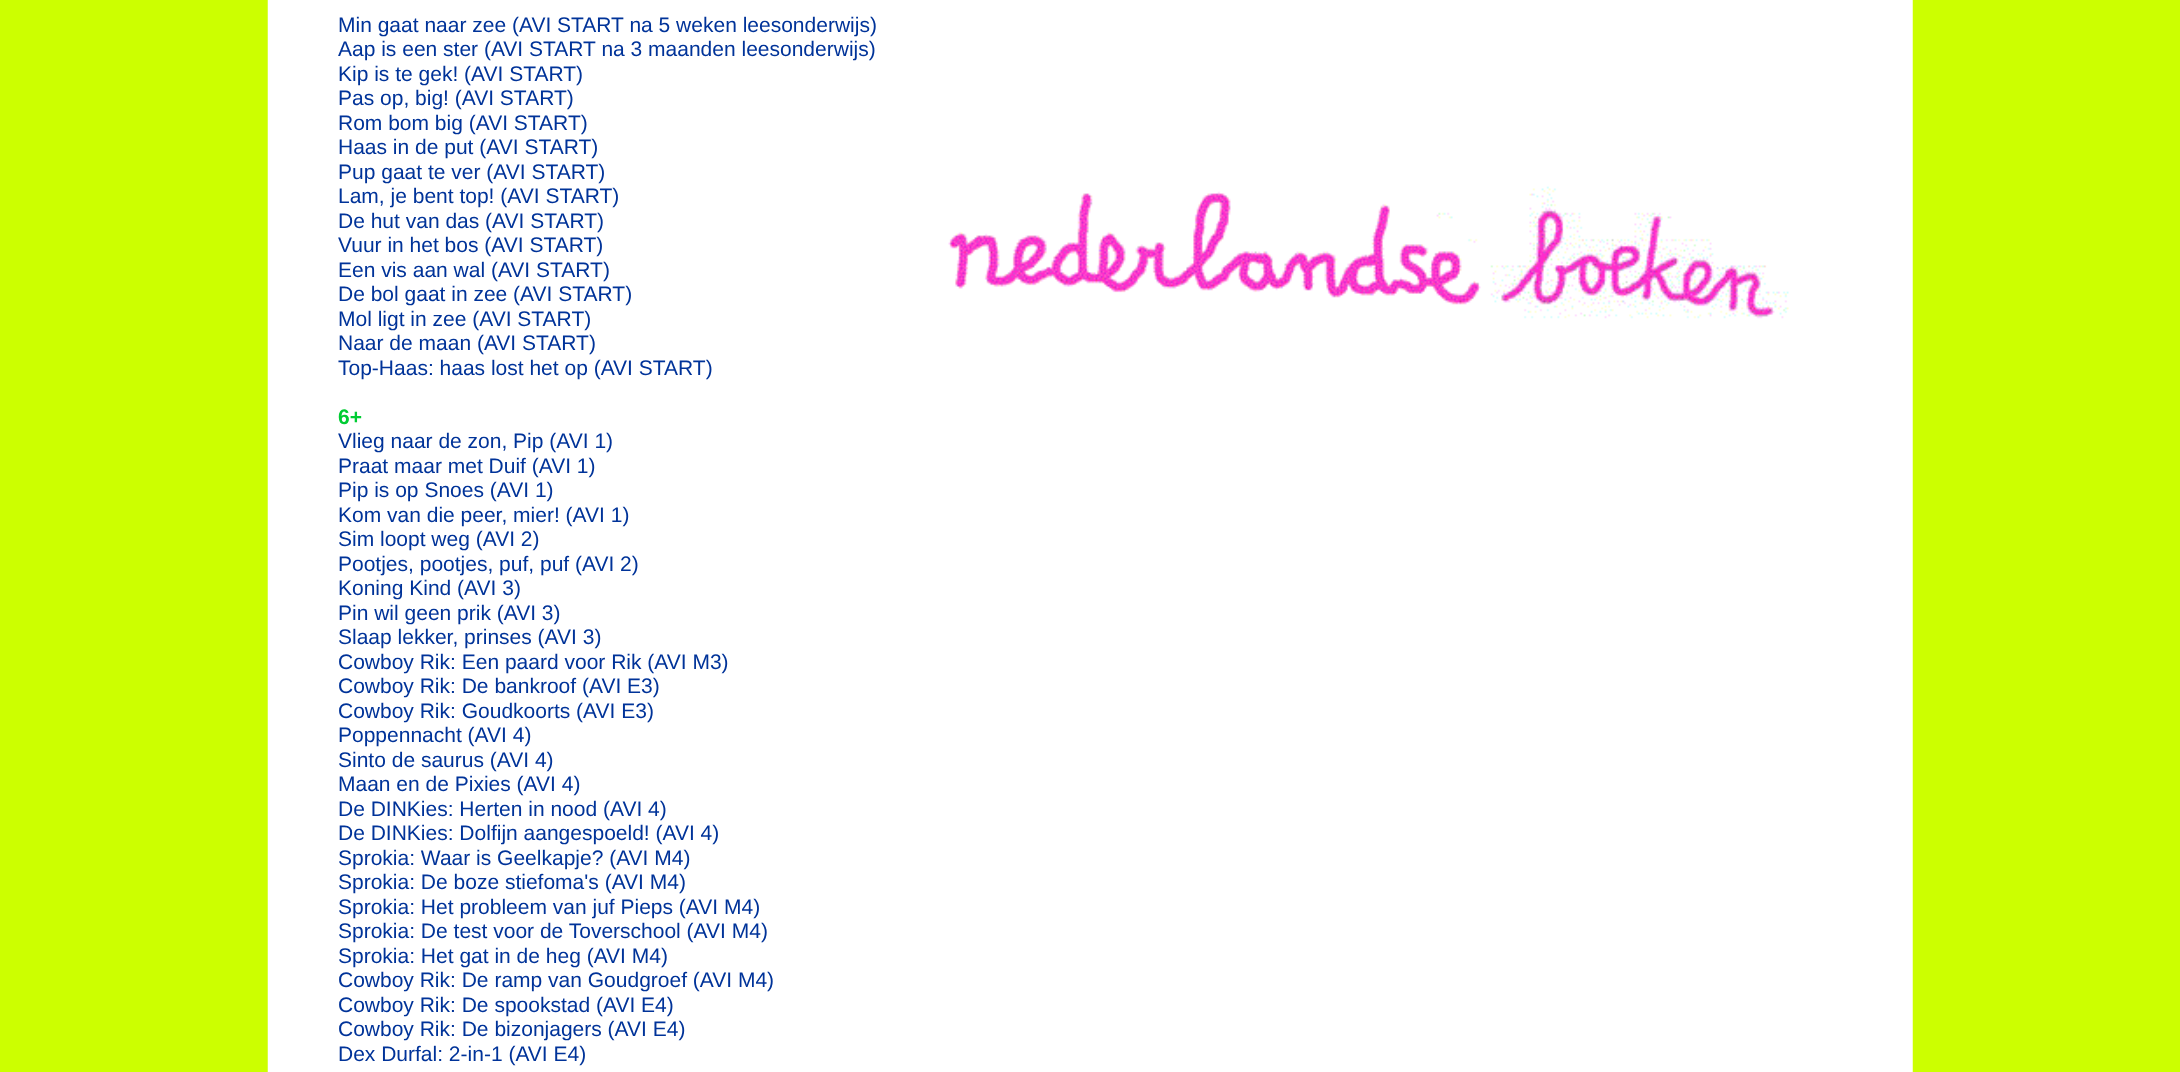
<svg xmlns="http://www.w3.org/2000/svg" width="2180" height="1072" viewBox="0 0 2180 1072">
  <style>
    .t1 { font: 21px Liberation Sans; fill: #039; }
    .t2 { font: bold 21px Liberation Sans; fill: #0c3; }
  </style>
  <rect width="100%" height="100%" fill="#cf0"/>
  <image x="267" y="0" width="1646" height="1072" href="images/1.png"/>
  <text x="338" y="32" class="t1">Min gaat naar zee (AVI START na 5 weken leesonderwijs)</text>
  <text x="338" y="56" class="t1">Aap is een ster (AVI START na 3 maanden leesonderwijs)</text>
  <text x="338" y="81" class="t1">Kip is te gek! (AVI START)</text>
  <text x="338" y="105" class="t1">Pas op, big! (AVI START)</text>
  <text x="338" y="130" class="t1">Rom bom big (AVI START)</text>
  <text x="338" y="154" class="t1">Haas in de put (AVI START)</text>
  <text x="338" y="179" class="t1">Pup gaat te ver (AVI START)</text>
  <text x="338" y="203" class="t1">Lam, je bent top! (AVI START)</text>
  <text x="338" y="228" class="t1">De hut van das (AVI START)</text>
  <text x="338" y="252" class="t1">Vuur in het bos (AVI START)</text>
  <text x="338" y="277" class="t1">Een vis aan wal (AVI START)</text>
  <text x="338" y="301" class="t1">De bol gaat in zee (AVI START)</text>
  <text x="338" y="326" class="t1">Mol ligt in zee (AVI START)</text>
  <text x="338" y="350" class="t1">Naar de maan (AVI START)</text>
  <text x="338" y="375" class="t1">Top-Haas: haas lost het op (AVI START)</text>
  <text x="338" y="424" class="t2">6+</text>
  <text x="338" y="448" class="t1">Vlieg naar de zon, Pip (AVI 1)</text>
  <text x="338" y="473" class="t1">Praat maar met Duif (AVI 1)</text>
  <text x="338" y="497" class="t1">Pip is op Snoes (AVI 1)</text>
  <text x="338" y="522" class="t1">Kom van die peer, mier! (AVI 1)</text>
  <text x="338" y="546" class="t1">Sim loopt weg (AVI 2)</text>
  <text x="338" y="571" class="t1">Pootjes, pootjes, puf, puf (AVI 2)</text>
  <text x="338" y="595" class="t1">Koning Kind (AVI 3)</text>
  <text x="338" y="620" class="t1">Pin wil geen prik (AVI 3)</text>
  <text x="338" y="644" class="t1">Slaap lekker, prinses (AVI 3)</text>
  <text x="338" y="669" class="t1">Cowboy Rik: Een paard voor Rik (AVI M3)</text>
  <text x="338" y="693" class="t1">Cowboy Rik: De bankroof (AVI E3)</text>
  <text x="338" y="718" class="t1">Cowboy Rik: Goudkoorts (AVI E3)</text>
  <text x="338" y="742" class="t1">Poppennacht (AVI 4)</text>
  <text x="338" y="767" class="t1">Sinto de saurus (AVI 4)</text>
  <text x="338" y="791" class="t1">Maan en de Pixies (AVI 4)</text>
  <text x="338" y="816" class="t1">De DINKies: Herten in nood (AVI 4)</text>
  <text x="338" y="840" class="t1">De DINKies: Dolfijn aangespoeld! (AVI 4)</text>
  <text x="338" y="865" class="t1">Sprokia: Waar is Geelkapje? (AVI M4)</text>
  <text x="338" y="889" class="t1">Sprokia: De boze stiefoma's (AVI M4)</text>
  <text x="338" y="914" class="t1">Sprokia: Het probleem van juf Pieps (AVI M4)</text>
  <text x="338" y="938" class="t1">Sprokia: De test voor de Toverschool (AVI M4)</text>
  <text x="338" y="963" class="t1">Sprokia: Het gat in de heg (AVI M4)</text>
  <text x="338" y="987" class="t1">Cowboy Rik: De ramp van Goudgroef (AVI M4)</text>
  <text x="338" y="1012" class="t1">Cowboy Rik: De spookstad (AVI E4)</text>
  <text x="338" y="1036" class="t1">Cowboy Rik: De bizonjagers (AVI E4)</text>
  <text x="338" y="1061" class="t1">Dex Durfal: 2-in-1 (AVI E4)</text>
</svg>
